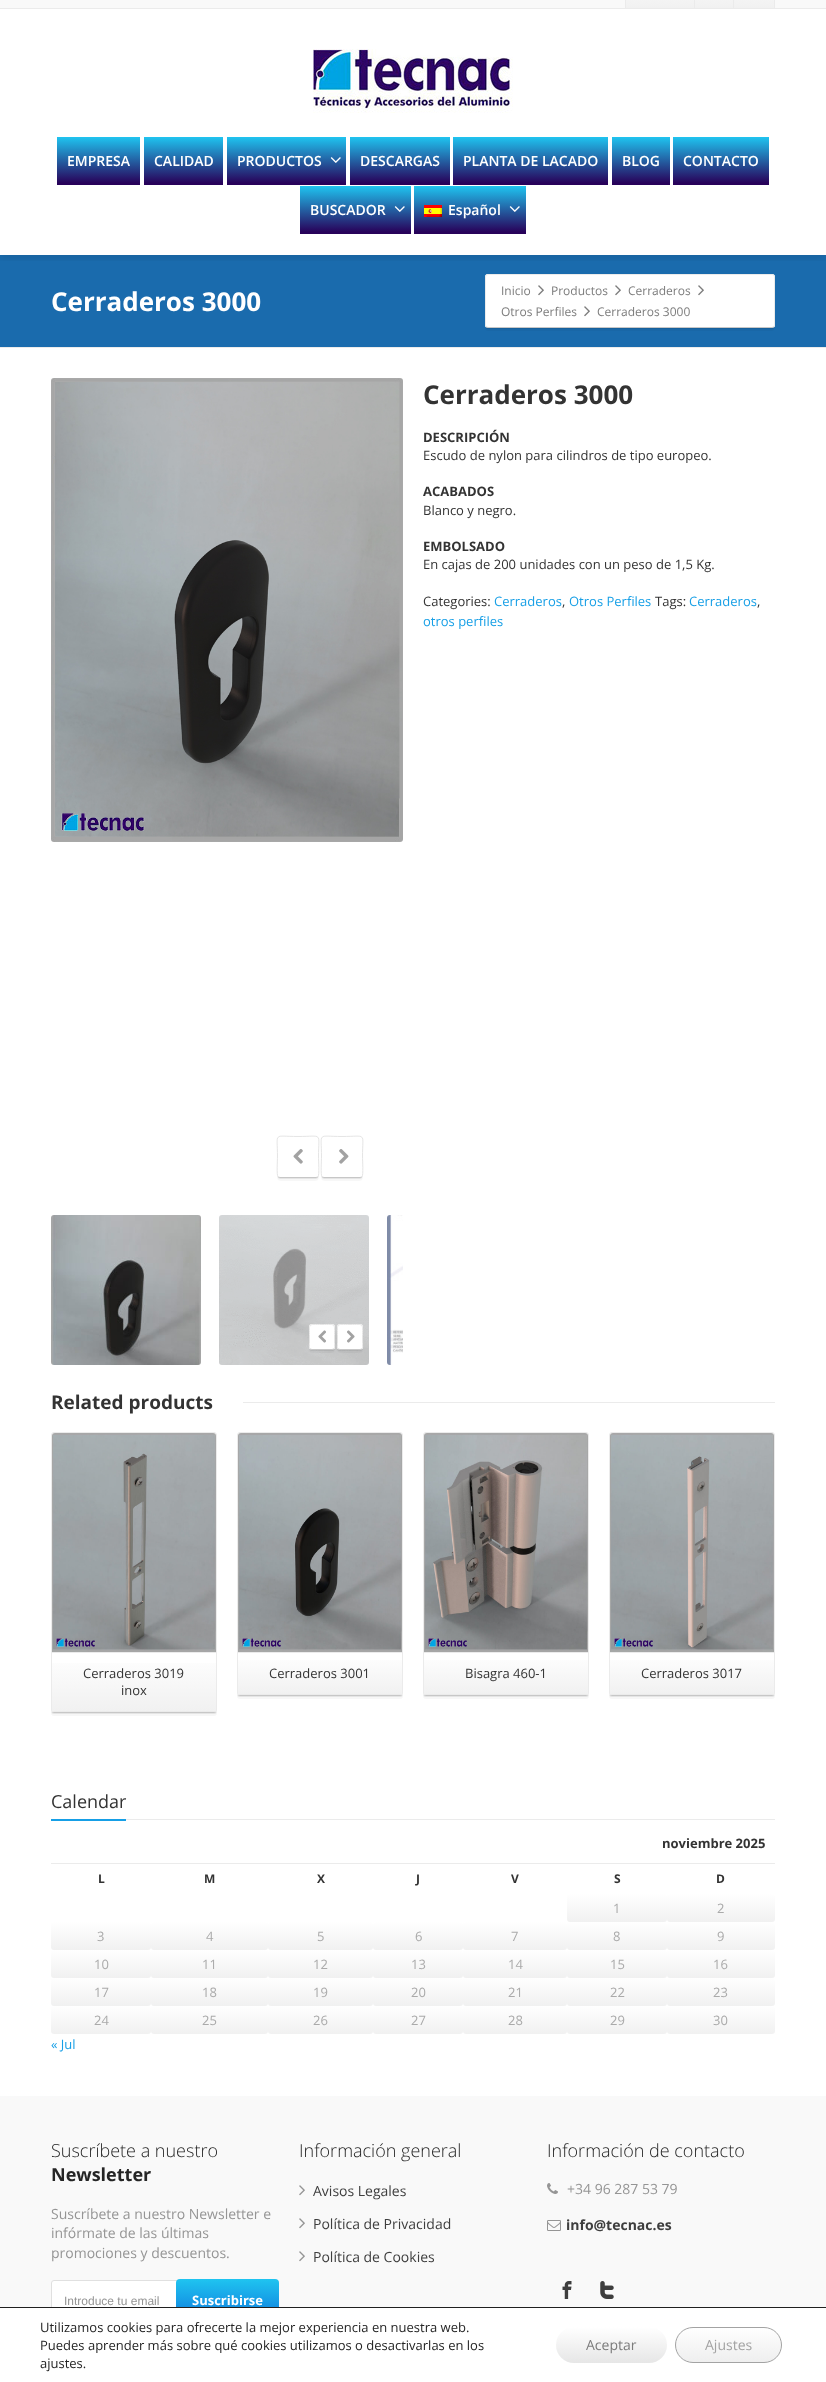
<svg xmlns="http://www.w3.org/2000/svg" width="826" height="2382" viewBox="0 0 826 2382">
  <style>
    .t1 { font: 600 14px Open Sans; fill: #fff; }
    .t2 { font: bold 26px Open Sans; fill: #fff; }
    .t3 { font: 12px Open Sans; fill: #7c7c7c; }
    .t4 { font: bold 26px Open Sans; fill: #333; }
    .t5 { font: bold 13px Open Sans; fill: #333; }
    .t6 { font: 13px Open Sans; fill: #333; }
    .t7 { font: 13px Open Sans; fill: #169fe6; }
    .t8 { font: bold 19px Open Sans; fill: #333; }
    .t9 { font: 18px Open Sans; fill: #333; }
    .t10 { font: bold 12px Open Sans; fill: #333; }
    .t11 { font: 13px Open Sans; fill: #aaa; }
    .t12 { font: 300 18px Open Sans; fill: #252525; }
    .t13 { font: bold 18px Open Sans; fill: #252525; }
    .t14 { font: 14px Open Sans; fill: #959595; }
    .t15 { font: 12px Liberation Sans; fill: #959595; }
    .t16 { font: bold 13px Open Sans; fill: #fff; }
    .t17 { font: 14px Open Sans; fill: #3e3e3e; }
    .t18 { font: bold 14px Open Sans; fill: #3e3e3e; }
    .t19 { font: 13px Open Sans; fill: #252525; }
    .t20 { font: 14px Open Sans; fill: #7c7c7c; }
    .t21 { font: 14px Open Sans; fill: #a3a3a3; }
  </style>
  <defs>
    <clipPath id="clip1"><rect x="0" y="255" width="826" height="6"/></clipPath>
    <linearGradient id="g1" gradientUnits="userSpaceOnUse" x1="661" y1="-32" x2="661" y2="8"><stop offset="0" stop-color="#fff"/><stop offset="1" stop-color="#f1f1f1"/></linearGradient>
    <linearGradient id="g2" gradientUnits="userSpaceOnUse" x1="715" y1="-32" x2="715" y2="8"><stop offset="0" stop-color="#fff"/><stop offset="1" stop-color="#f1f1f1"/></linearGradient>
    <linearGradient id="g3" gradientUnits="userSpaceOnUse" x1="754" y1="-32" x2="754" y2="8"><stop offset="0" stop-color="#fff"/><stop offset="1" stop-color="#f1f1f1"/></linearGradient>
    <linearGradient id="g4" gradientUnits="userSpaceOnUse" x1="99" y1="137" x2="99" y2="183"><stop offset="0" stop-color="#1fc4f0"/><stop offset="1" stop-color="#28025a"/></linearGradient>
    <linearGradient id="g5" gradientUnits="userSpaceOnUse" x1="184" y1="137" x2="184" y2="183"><stop offset="0" stop-color="#1fc4f0"/><stop offset="1" stop-color="#28025a"/></linearGradient>
    <linearGradient id="g6" gradientUnits="userSpaceOnUse" x1="287" y1="137" x2="287" y2="183"><stop offset="0" stop-color="#1fc4f0"/><stop offset="1" stop-color="#28025a"/></linearGradient>
    <linearGradient id="g7" gradientUnits="userSpaceOnUse" x1="400" y1="137" x2="400" y2="183"><stop offset="0" stop-color="#1fc4f0"/><stop offset="1" stop-color="#28025a"/></linearGradient>
    <linearGradient id="g8" gradientUnits="userSpaceOnUse" x1="531" y1="137" x2="531" y2="183"><stop offset="0" stop-color="#1fc4f0"/><stop offset="1" stop-color="#28025a"/></linearGradient>
    <linearGradient id="g9" gradientUnits="userSpaceOnUse" x1="641" y1="137" x2="641" y2="183"><stop offset="0" stop-color="#1fc4f0"/><stop offset="1" stop-color="#28025a"/></linearGradient>
    <linearGradient id="g10" gradientUnits="userSpaceOnUse" x1="721" y1="137" x2="721" y2="183"><stop offset="0" stop-color="#1fc4f0"/><stop offset="1" stop-color="#28025a"/></linearGradient>
    <linearGradient id="g11" gradientUnits="userSpaceOnUse" x1="356" y1="186" x2="356" y2="232"><stop offset="0" stop-color="#1fc4f0"/><stop offset="1" stop-color="#28025a"/></linearGradient>
    <linearGradient id="g12" gradientUnits="userSpaceOnUse" x1="470" y1="186" x2="470" y2="232"><stop offset="0" stop-color="#1fc4f0"/><stop offset="1" stop-color="#28025a"/></linearGradient>
    <linearGradient id="g13" gradientUnits="userSpaceOnUse" x1="134" y1="1653" x2="134" y2="1711"><stop offset="0" stop-color="#fff"/><stop offset="1" stop-color="#f1f1f1"/></linearGradient>
    <linearGradient id="g14" gradientUnits="userSpaceOnUse" x1="320" y1="1653" x2="320" y2="1694"><stop offset="0" stop-color="#fff"/><stop offset="1" stop-color="#f1f1f1"/></linearGradient>
    <linearGradient id="g15" gradientUnits="userSpaceOnUse" x1="506" y1="1653" x2="506" y2="1694"><stop offset="0" stop-color="#fff"/><stop offset="1" stop-color="#f1f1f1"/></linearGradient>
    <linearGradient id="g16" gradientUnits="userSpaceOnUse" x1="692" y1="1653" x2="692" y2="1694"><stop offset="0" stop-color="#fff"/><stop offset="1" stop-color="#f1f1f1"/></linearGradient>
    <linearGradient id="g17" gradientUnits="userSpaceOnUse" x1="617" y1="1894" x2="617" y2="1922"><stop offset="0" stop-color="#fff"/><stop offset="1" stop-color="#f1f1f1"/></linearGradient>
    <linearGradient id="g18" gradientUnits="userSpaceOnUse" x1="721" y1="1894" x2="721" y2="1922"><stop offset="0" stop-color="#fff"/><stop offset="1" stop-color="#f1f1f1"/></linearGradient>
    <linearGradient id="g19" gradientUnits="userSpaceOnUse" x1="101" y1="1922" x2="101" y2="1950"><stop offset="0" stop-color="#fff"/><stop offset="1" stop-color="#f1f1f1"/></linearGradient>
    <linearGradient id="g20" gradientUnits="userSpaceOnUse" x1="210" y1="1922" x2="210" y2="1950"><stop offset="0" stop-color="#fff"/><stop offset="1" stop-color="#f1f1f1"/></linearGradient>
    <linearGradient id="g21" gradientUnits="userSpaceOnUse" x1="321" y1="1922" x2="321" y2="1950"><stop offset="0" stop-color="#fff"/><stop offset="1" stop-color="#f1f1f1"/></linearGradient>
    <linearGradient id="g22" gradientUnits="userSpaceOnUse" x1="418" y1="1922" x2="418" y2="1950"><stop offset="0" stop-color="#fff"/><stop offset="1" stop-color="#f1f1f1"/></linearGradient>
    <linearGradient id="g23" gradientUnits="userSpaceOnUse" x1="515" y1="1922" x2="515" y2="1950"><stop offset="0" stop-color="#fff"/><stop offset="1" stop-color="#f1f1f1"/></linearGradient>
    <linearGradient id="g24" gradientUnits="userSpaceOnUse" x1="617" y1="1922" x2="617" y2="1950"><stop offset="0" stop-color="#fff"/><stop offset="1" stop-color="#f1f1f1"/></linearGradient>
    <linearGradient id="g25" gradientUnits="userSpaceOnUse" x1="721" y1="1922" x2="721" y2="1950"><stop offset="0" stop-color="#fff"/><stop offset="1" stop-color="#f1f1f1"/></linearGradient>
    <linearGradient id="g26" gradientUnits="userSpaceOnUse" x1="101" y1="1950" x2="101" y2="1978"><stop offset="0" stop-color="#fff"/><stop offset="1" stop-color="#f1f1f1"/></linearGradient>
    <linearGradient id="g27" gradientUnits="userSpaceOnUse" x1="210" y1="1950" x2="210" y2="1978"><stop offset="0" stop-color="#fff"/><stop offset="1" stop-color="#f1f1f1"/></linearGradient>
    <linearGradient id="g28" gradientUnits="userSpaceOnUse" x1="321" y1="1950" x2="321" y2="1978"><stop offset="0" stop-color="#fff"/><stop offset="1" stop-color="#f1f1f1"/></linearGradient>
    <linearGradient id="g29" gradientUnits="userSpaceOnUse" x1="418" y1="1950" x2="418" y2="1978"><stop offset="0" stop-color="#fff"/><stop offset="1" stop-color="#f1f1f1"/></linearGradient>
    <linearGradient id="g30" gradientUnits="userSpaceOnUse" x1="515" y1="1950" x2="515" y2="1978"><stop offset="0" stop-color="#fff"/><stop offset="1" stop-color="#f1f1f1"/></linearGradient>
    <linearGradient id="g31" gradientUnits="userSpaceOnUse" x1="617" y1="1950" x2="617" y2="1978"><stop offset="0" stop-color="#fff"/><stop offset="1" stop-color="#f1f1f1"/></linearGradient>
    <linearGradient id="g32" gradientUnits="userSpaceOnUse" x1="721" y1="1950" x2="721" y2="1978"><stop offset="0" stop-color="#fff"/><stop offset="1" stop-color="#f1f1f1"/></linearGradient>
    <linearGradient id="g33" gradientUnits="userSpaceOnUse" x1="101" y1="1978" x2="101" y2="2006"><stop offset="0" stop-color="#fff"/><stop offset="1" stop-color="#f1f1f1"/></linearGradient>
    <linearGradient id="g34" gradientUnits="userSpaceOnUse" x1="210" y1="1978" x2="210" y2="2006"><stop offset="0" stop-color="#fff"/><stop offset="1" stop-color="#f1f1f1"/></linearGradient>
    <linearGradient id="g35" gradientUnits="userSpaceOnUse" x1="321" y1="1978" x2="321" y2="2006"><stop offset="0" stop-color="#fff"/><stop offset="1" stop-color="#f1f1f1"/></linearGradient>
    <linearGradient id="g36" gradientUnits="userSpaceOnUse" x1="418" y1="1978" x2="418" y2="2006"><stop offset="0" stop-color="#fff"/><stop offset="1" stop-color="#f1f1f1"/></linearGradient>
    <linearGradient id="g37" gradientUnits="userSpaceOnUse" x1="515" y1="1978" x2="515" y2="2006"><stop offset="0" stop-color="#fff"/><stop offset="1" stop-color="#f1f1f1"/></linearGradient>
    <linearGradient id="g38" gradientUnits="userSpaceOnUse" x1="617" y1="1978" x2="617" y2="2006"><stop offset="0" stop-color="#fff"/><stop offset="1" stop-color="#f1f1f1"/></linearGradient>
    <linearGradient id="g39" gradientUnits="userSpaceOnUse" x1="721" y1="1978" x2="721" y2="2006"><stop offset="0" stop-color="#fff"/><stop offset="1" stop-color="#f1f1f1"/></linearGradient>
    <linearGradient id="g40" gradientUnits="userSpaceOnUse" x1="101" y1="2006" x2="101" y2="2034"><stop offset="0" stop-color="#fff"/><stop offset="1" stop-color="#f1f1f1"/></linearGradient>
    <linearGradient id="g41" gradientUnits="userSpaceOnUse" x1="210" y1="2006" x2="210" y2="2034"><stop offset="0" stop-color="#fff"/><stop offset="1" stop-color="#f1f1f1"/></linearGradient>
    <linearGradient id="g42" gradientUnits="userSpaceOnUse" x1="321" y1="2006" x2="321" y2="2034"><stop offset="0" stop-color="#fff"/><stop offset="1" stop-color="#f1f1f1"/></linearGradient>
    <linearGradient id="g43" gradientUnits="userSpaceOnUse" x1="418" y1="2006" x2="418" y2="2034"><stop offset="0" stop-color="#fff"/><stop offset="1" stop-color="#f1f1f1"/></linearGradient>
    <linearGradient id="g44" gradientUnits="userSpaceOnUse" x1="515" y1="2006" x2="515" y2="2034"><stop offset="0" stop-color="#fff"/><stop offset="1" stop-color="#f1f1f1"/></linearGradient>
    <linearGradient id="g45" gradientUnits="userSpaceOnUse" x1="617" y1="2006" x2="617" y2="2034"><stop offset="0" stop-color="#fff"/><stop offset="1" stop-color="#f1f1f1"/></linearGradient>
    <linearGradient id="g46" gradientUnits="userSpaceOnUse" x1="721" y1="2006" x2="721" y2="2034"><stop offset="0" stop-color="#fff"/><stop offset="1" stop-color="#f1f1f1"/></linearGradient>
    <linearGradient id="g47" gradientUnits="userSpaceOnUse" x1="228" y1="2279" x2="228" y2="2321"><stop offset="0" stop-color="#1fc4f0"/><stop offset="1" stop-color="#0e7add"/></linearGradient>
    <linearGradient id="g48" gradientUnits="userSpaceOnUse" x1="612" y1="2327" x2="612" y2="2363"><stop offset="0" stop-color="#fff"/><stop offset="1" stop-color="#e6e6e6"/></linearGradient>
    <linearGradient id="g49" gradientUnits="userSpaceOnUse" x1="729" y1="2327" x2="729" y2="2363"><stop offset="0" stop-color="#fff"/><stop offset="1" stop-color="#eee"/></linearGradient>
  </defs>
  <rect width="100%" height="100%" fill="#fff"/>
  <rect x="0" y="255" width="826" height="92" fill="#1a6bad"/>
  <g clip-path="url(#clip1)">
    <rect x="0" y="11" width="826" height="246" fill="#0000001a" filter="blur(5px)"/>
  </g>
  <rect x="0" y="0" width="826" height="8" fill="#f9f9f9"/>
  <rect x="0" y="8" width="826" height="1" fill="#ebebeb"/>
  <rect x="625" y="0" width="1" height="8" fill="#ebebeb"/>
  <rect x="626" y="0" width="70" height="8" fill="url(#g1)"/>
  <rect x="694" y="0" width="42" height="8" fill="url(#g2)"/>
  <rect x="694" y="0" width="1" height="8" fill="#ebebeb"/>
  <rect x="733" y="0" width="42" height="8" fill="url(#g3)"/>
  <rect x="774" y="0" width="1" height="8" fill="#ebebeb"/>
  <rect x="733" y="0" width="1" height="8" fill="#ebebeb"/>
  <image x="313" y="49" width="200" height="64" href="images/1.png"/>
  <rect x="57" y="183" width="83" height="2" fill="#28025a"/>
  <rect x="57" y="137" width="83" height="46" fill="url(#g4)"/>
  <text x="67" y="166" class="t1">EMPRESA</text>
  <rect x="144" y="183" width="79" height="2" fill="#28025a"/>
  <rect x="144" y="137" width="79" height="46" fill="url(#g5)"/>
  <text x="154" y="166" class="t1">CALIDAD</text>
  <rect x="227" y="183" width="119" height="2" fill="#28025a"/>
  <rect x="227" y="137" width="119" height="46" fill="url(#g6)"/>
  <text x="237" y="166" class="t1">PRODUCTOS</text>
  <image x="330" y="157" width="11" height="6" href="images/2.png"/>
  <rect x="350" y="183" width="100" height="2" fill="#28025a"/>
  <rect x="350" y="137" width="100" height="46" fill="url(#g7)"/>
  <text x="360" y="166" class="t1">DESCARGAS</text>
  <rect x="453" y="183" width="155" height="2" fill="#28025a"/>
  <rect x="453" y="137" width="155" height="46" fill="url(#g8)"/>
  <text x="463" y="166" class="t1">PLANTA DE LACADO</text>
  <rect x="612" y="183" width="58" height="2" fill="#28025a"/>
  <rect x="612" y="137" width="58" height="46" fill="url(#g9)"/>
  <text x="622" y="166" class="t1">BLOG</text>
  <rect x="673" y="183" width="96" height="2" fill="#28025a"/>
  <rect x="673" y="137" width="96" height="46" fill="url(#g10)"/>
  <text x="683" y="166" class="t1">CONTACTO</text>
  <rect x="300" y="232" width="111" height="2" fill="#28025a"/>
  <rect x="300" y="186" width="111" height="46" fill="url(#g11)"/>
  <text x="310" y="215" class="t1">BUSCADOR</text>
  <image x="394" y="206" width="11" height="6" href="images/2.png"/>
  <rect x="414" y="232" width="112" height="2" fill="#28025a"/>
  <rect x="414" y="186" width="112" height="46" fill="url(#g12)"/>
  <image x="424" y="205" width="18" height="12" href="images/3.png"/>
  <text x="448" y="215" class="t1">Español</text>
  <image x="509" y="206" width="11" height="6" href="images/2.png"/>
  <rect x="0" y="347" width="826" height="1" fill="#ebebeb"/>
  <text x="51" y="311" class="t2">Cerraderos 3000</text>
  <path d="M485 325C485 327 486 329 488 329H772C774 329 775 327 775 325C775 327 774 328 772 328H488C486 328 485 327 485 325Z" fill="#1864a1"/>
  <path d="M485 325C485 327 485 331 488 331H772C775 331 775 327 775 325C775 327 774 328 772 328H488C486 328 485 327 485 325Z" fill="#00000008"/>
  <rect x="485" y="274" width="290" height="54" rx="3" fill="#fff"/>
  <path d="M774 327L772 327.5H488L486 327" fill="none" stroke="#00000038"/>
  <path d="M486 327L485.5 325V277L486 275L488 274.5H772L774 275L774.5 277V325L774 327" fill="none" stroke="#ebebeb"/>
  <text x="501" y="295" class="t3">Inicio</text>
  <image x="538" y="285" width="6" height="11" href="images/4.png"/>
  <text x="551" y="295" class="t3">Productos</text>
  <image x="615" y="285" width="6" height="11" href="images/4.png"/>
  <text x="628" y="295" class="t3">Cerraderos</text>
  <image x="698" y="285" width="6" height="11" href="images/4.png"/>
  <text x="501" y="316" class="t3">Otros Perfiles</text>
  <image x="584" y="306" width="6" height="11" href="images/4.png"/>
  <text x="597" y="316" class="t3">Cerraderos 3000</text>
  <image x="51" y="378" width="352" height="464" href="images/5.png"/>
  <path d="M277 1175C277 1180 282 1179 286 1179H310C314 1179 319 1180 319 1175C319 1177 318 1178 316 1178H280C278 1178 277 1177 277 1175Z" fill="#ededed"/>
  <path d="M277 1175C277 1182 279 1181 286 1181H310C317 1181 319 1182 319 1175C319 1177 318 1178 316 1178H280C278 1178 277 1177 277 1175Z" fill="#00000008"/>
  <rect x="277" y="1136" width="42" height="42" rx="3" fill="#fff"/>
  <path d="M318 1177L316 1177.5H280L278 1177" fill="none" stroke="#00000038"/>
  <path d="M278 1177C276.5 1175 277.5 1160 277.5 1157C277.5 1131.5 272.5 1136.5 298 1136.5C323.5 1136.5 318.5 1131.5 318.5 1157C318.5 1160 319.5 1175 318 1177" fill="none" stroke="#e5e5e5"/>
  <image x="293" y="1149" width="10" height="15" href="images/6.png"/>
  <path d="M321 1175C321 1180 326 1179 330 1179H354C358 1179 363 1180 363 1175C363 1177 362 1178 360 1178H324C322 1178 321 1177 321 1175Z" fill="#ededed"/>
  <path d="M321 1175C321 1182 323 1181 330 1181H354C361 1181 363 1182 363 1175C363 1177 362 1178 360 1178H324C322 1178 321 1177 321 1175Z" fill="#00000008"/>
  <rect x="321" y="1136" width="42" height="42" rx="3" fill="#fff"/>
  <path d="M362 1177L360 1177.5H324L322 1177" fill="none" stroke="#00000038"/>
  <path d="M322 1177C320.5 1175 321.5 1160 321.5 1157C321.5 1131.5 316.5 1136.5 342 1136.5C367.5 1136.5 362.5 1131.5 362.5 1157C362.5 1160 363.5 1175 362 1177" fill="none" stroke="#e5e5e5"/>
  <image x="339" y="1149" width="10" height="15" href="images/7.png"/>
  <image x="51" y="1215" width="150" height="150" href="images/8.png"/>
  <image x="219" y="1215" width="150" height="150" href="images/9.png"/>
  <image x="387" y="1215" width="16" height="150" href="images/10.png"/>
  <path d="M309 1347C309 1351.5 311.5 1351 315.5 1351H328.5C332.5 1351 335 1351.5 335 1347C335 1348.5 333.5 1350 332 1350H312C310.5 1350 309 1348.5 309 1347Z" fill="#00000012"/>
  <path d="M309 1347C309 1352.5 309.5 1353 315.5 1353H328.5C334.5 1353 335 1352.5 335 1347C335 1348.5 333.5 1350 332 1350H312C310.5 1350 309 1348.5 309 1347Z" fill="#00000008"/>
  <rect x="309" y="1324" width="26" height="26" rx="3" fill="#fff"/>
  <path d="M334 1349C333.5 1349 332.5 1349.5 332 1349.5H312C311.5 1349.5 310.5 1349 310 1349" fill="none" stroke="#00000038"/>
  <path d="M310 1349C309 1347.5 309.5 1345 309.5 1343.5V1337C309.5 1322.5 307.5 1324.5 322 1324.5C336.5 1324.5 334.5 1322.5 334.5 1337V1343.5C334.5 1345 335 1347.5 334 1349" fill="none" stroke="#e5e5e5"/>
  <image x="318" y="1330" width="8" height="13" href="images/11.png"/>
  <path d="M337 1347C337 1351.5 339.5 1351 343.5 1351H356.5C360.5 1351 363 1351.5 363 1347C363 1348.5 361.5 1350 360 1350H340C338.5 1350 337 1348.5 337 1347Z" fill="#00000012"/>
  <path d="M337 1347C337 1352.5 337.5 1353 343.5 1353H356.5C362.5 1353 363 1352.5 363 1347C363 1348.5 361.5 1350 360 1350H340C338.5 1350 337 1348.5 337 1347Z" fill="#00000008"/>
  <rect x="337" y="1324" width="26" height="26" rx="3" fill="#fff"/>
  <path d="M362 1349C361.5 1349 360.5 1349.5 360 1349.5H340C339.5 1349.5 338.5 1349 338 1349" fill="none" stroke="#00000038"/>
  <path d="M338 1349C337 1347.5 337.5 1345 337.5 1343.5V1337C337.5 1322.5 335.5 1324.5 350 1324.5C364.5 1324.5 362.5 1322.5 362.5 1337V1343.5C362.5 1345 363 1347.5 362 1349" fill="none" stroke="#e5e5e5"/>
  <image x="347" y="1330" width="8" height="13" href="images/12.png"/>
  <text x="423" y="404" class="t4">Cerraderos 3000</text>
  <text x="423" y="442" class="t5">DESCRIPCIÓN</text>
  <text x="423" y="460" class="t6">Escudo de nylon para cilindros de tipo europeo.</text>
  <text x="423" y="496" class="t5">ACABADOS</text>
  <text x="423" y="515" class="t6">Blanco y negro.</text>
  <text x="423" y="551" class="t5">EMBOLSADO</text>
  <text x="423" y="569" class="t6">En cajas de 200 unidades con un peso de 1,5 Kg.</text>
  <text x="423" y="606" class="t6">Categories:</text>
  <text x="494" y="606" class="t7">Cerraderos</text>
  <text x="562" y="606" class="t6">,</text>
  <text x="569" y="606" class="t7">Otros Perfiles</text>
  <text x="655" y="606" class="t6">Tags:</text>
  <text x="689" y="606" class="t7">Cerraderos</text>
  <text x="757" y="606" class="t6">,</text>
  <text x="423" y="626" class="t7">otros perfiles</text>
  <text x="51" y="1409" class="t8">Related products</text>
  <rect x="243" y="1402" width="532" height="1" fill="#ebebeb"/>
  <path d="M51 1710V1711C51 1713 52 1714 54 1714H214C216 1714 217 1713 217 1711V1710C217 1712 216 1713 214 1713H54C52 1713 51 1712 51 1710Z" fill="#ededed"/>
  <path d="M51 1710V1713C51 1715 52 1716 54 1716H214C216 1716 217 1715 217 1713V1710C217 1712 216 1713 214 1713H54C52 1713 51 1712 51 1710Z" fill="#00000008"/>
  <rect x="51" y="1432" width="166" height="281" rx="3" fill="#fff"/>
  <path d="M216 1712L214 1712.5H54L52 1712" fill="none" stroke="#00000038"/>
  <path d="M52 1712L51.5 1710V1435C51.5 1433.5 52.5 1432.5 54 1432.5H214C215.5 1432.5 216.5 1433.5 216.5 1435V1710L216 1712" fill="none" stroke="#ebebeb"/>
  <rect x="52" y="1652" width="164" height="1" fill="#ebebeb"/>
  <image x="52" y="1433" width="164" height="219" href="images/13.png"/>
  <rect x="52" y="1663" width="164" height="48" fill="url(#g13)"/>
  <rect x="52" y="1711" width="164" height="1" fill="#ebebeb"/>
  <text x="83" y="1678" class="t6">Cerraderos 3019</text>
  <text x="121" y="1695" class="t6">inox</text>
  <path d="M237 1693V1694C237 1696 238 1697 240 1697H400C402 1697 403 1696 403 1694V1693C403 1695 402 1696 400 1696H240C238 1696 237 1695 237 1693Z" fill="#ededed"/>
  <path d="M237 1693V1696C237 1698 238 1699 240 1699H400C402 1699 403 1698 403 1696V1693C403 1695 402 1696 400 1696H240C238 1696 237 1695 237 1693Z" fill="#00000008"/>
  <rect x="237" y="1432" width="166" height="264" rx="3" fill="#fff"/>
  <path d="M402 1695L400 1695.5H240L238 1695" fill="none" stroke="#00000038"/>
  <path d="M238 1695L237.5 1693V1435C237.5 1433.5 238.5 1432.5 240 1432.5H400C401.5 1432.5 402.5 1433.5 402.5 1435V1693L402 1695" fill="none" stroke="#ebebeb"/>
  <rect x="238" y="1652" width="164" height="1" fill="#ebebeb"/>
  <image x="238" y="1433" width="164" height="219" href="images/14.png"/>
  <rect x="238" y="1660" width="164" height="34" fill="url(#g14)"/>
  <rect x="238" y="1694" width="164" height="1" fill="#ebebeb"/>
  <text x="269" y="1678" class="t6">Cerraderos 3001</text>
  <path d="M423 1693V1694C423 1696 424 1697 426 1697H586C588 1697 589 1696 589 1694V1693C589 1695 588 1696 586 1696H426C424 1696 423 1695 423 1693Z" fill="#ededed"/>
  <path d="M423 1693V1696C423 1698 424 1699 426 1699H586C588 1699 589 1698 589 1696V1693C589 1695 588 1696 586 1696H426C424 1696 423 1695 423 1693Z" fill="#00000008"/>
  <rect x="423" y="1432" width="166" height="264" rx="3" fill="#fff"/>
  <path d="M588 1695L586 1695.5H426L424 1695" fill="none" stroke="#00000038"/>
  <path d="M424 1695L423.5 1693V1435C423.5 1433.5 424.5 1432.5 426 1432.5H586C587.5 1432.5 588.5 1433.5 588.5 1435V1693L588 1695" fill="none" stroke="#ebebeb"/>
  <rect x="424" y="1652" width="164" height="1" fill="#ebebeb"/>
  <image x="424" y="1433" width="164" height="219" href="images/15.png"/>
  <rect x="424" y="1660" width="164" height="34" fill="url(#g15)"/>
  <rect x="424" y="1694" width="164" height="1" fill="#ebebeb"/>
  <text x="465" y="1678" class="t6">Bisagra 460-1</text>
  <path d="M609 1693V1694C609 1696 610 1697 612 1697H772C774 1697 775 1696 775 1694V1693C775 1695 774 1696 772 1696H612C610 1696 609 1695 609 1693Z" fill="#ededed"/>
  <path d="M609 1693V1696C609 1698 610 1699 612 1699H772C774 1699 775 1698 775 1696V1693C775 1695 774 1696 772 1696H612C610 1696 609 1695 609 1693Z" fill="#00000008"/>
  <rect x="609" y="1432" width="166" height="264" rx="3" fill="#fff"/>
  <path d="M774 1695L772 1695.5H612L610 1695" fill="none" stroke="#00000038"/>
  <path d="M610 1695L609.5 1693V1435C609.5 1433.5 610.5 1432.5 612 1432.5H772C773.5 1432.5 774.5 1433.5 774.5 1435V1693L774 1695" fill="none" stroke="#ebebeb"/>
  <rect x="610" y="1652" width="164" height="1" fill="#ebebeb"/>
  <image x="610" y="1433" width="164" height="219" href="images/16.png"/>
  <rect x="610" y="1660" width="164" height="34" fill="url(#g16)"/>
  <rect x="610" y="1694" width="164" height="1" fill="#ebebeb"/>
  <text x="641" y="1678" class="t6">Cerraderos 3017</text>
  <rect x="126" y="1819" width="649" height="1" fill="#ebebeb"/>
  <rect x="51" y="1819" width="75" height="2" fill="#169fe6"/>
  <text x="51" y="1808" class="t9">Calendar</text>
  <rect x="51" y="1863" width="724" height="1" fill="#ebebeb"/>
  <text x="662" y="1848" class="t5">noviembre 2025</text>
  <text x="98" y="1883" class="t10">L</text>
  <text x="204" y="1883" class="t10">M</text>
  <text x="317" y="1883" class="t10">X</text>
  <text x="416" y="1883" class="t10">J</text>
  <text x="511" y="1883" class="t10">V</text>
  <text x="614" y="1883" class="t10">S</text>
  <text x="716" y="1883" class="t10">D</text>
  <rect x="567" y="1894" width="100" height="28" rx="3" fill="url(#g17)"/>
  <text x="613" y="1913" class="t11">1</text>
  <rect x="667" y="1894" width="108" height="28" rx="3" fill="url(#g18)"/>
  <text x="717" y="1913" class="t11">2</text>
  <rect x="51" y="1922" width="100" height="28" rx="3" fill="url(#g19)"/>
  <text x="97" y="1941" class="t11">3</text>
  <rect x="151" y="1922" width="117" height="28" rx="3" fill="url(#g20)"/>
  <text x="206" y="1941" class="t11">4</text>
  <rect x="268" y="1922" width="105" height="28" rx="3" fill="url(#g21)"/>
  <text x="317" y="1941" class="t11">5</text>
  <rect x="373" y="1922" width="90" height="28" rx="3" fill="url(#g22)"/>
  <text x="415" y="1941" class="t11">6</text>
  <rect x="463" y="1922" width="104" height="28" rx="3" fill="url(#g23)"/>
  <text x="511" y="1941" class="t11">7</text>
  <rect x="567" y="1922" width="100" height="28" rx="3" fill="url(#g24)"/>
  <text x="613" y="1941" class="t11">8</text>
  <rect x="667" y="1922" width="108" height="28" rx="3" fill="url(#g25)"/>
  <text x="717" y="1941" class="t11">9</text>
  <rect x="51" y="1950" width="100" height="28" rx="3" fill="url(#g26)"/>
  <text x="94" y="1969" class="t11">10</text>
  <rect x="151" y="1950" width="117" height="28" rx="3" fill="url(#g27)"/>
  <text x="202" y="1969" class="t11">11</text>
  <rect x="268" y="1950" width="105" height="28" rx="3" fill="url(#g28)"/>
  <text x="313" y="1969" class="t11">12</text>
  <rect x="373" y="1950" width="90" height="28" rx="3" fill="url(#g29)"/>
  <text x="411" y="1969" class="t11">13</text>
  <rect x="463" y="1950" width="104" height="28" rx="3" fill="url(#g30)"/>
  <text x="508" y="1969" class="t11">14</text>
  <rect x="567" y="1950" width="100" height="28" rx="3" fill="url(#g31)"/>
  <text x="610" y="1969" class="t11">15</text>
  <rect x="667" y="1950" width="108" height="28" rx="3" fill="url(#g32)"/>
  <text x="713" y="1969" class="t11">16</text>
  <rect x="51" y="1978" width="100" height="28" rx="3" fill="url(#g33)"/>
  <text x="94" y="1997" class="t11">17</text>
  <rect x="151" y="1978" width="117" height="28" rx="3" fill="url(#g34)"/>
  <text x="202" y="1997" class="t11">18</text>
  <rect x="268" y="1978" width="105" height="28" rx="3" fill="url(#g35)"/>
  <text x="313" y="1997" class="t11">19</text>
  <rect x="373" y="1978" width="90" height="28" rx="3" fill="url(#g36)"/>
  <text x="411" y="1997" class="t11">20</text>
  <rect x="463" y="1978" width="104" height="28" rx="3" fill="url(#g37)"/>
  <text x="508" y="1997" class="t11">21</text>
  <rect x="567" y="1978" width="100" height="28" rx="3" fill="url(#g38)"/>
  <text x="610" y="1997" class="t11">22</text>
  <rect x="667" y="1978" width="108" height="28" rx="3" fill="url(#g39)"/>
  <text x="713" y="1997" class="t11">23</text>
  <rect x="51" y="2006" width="100" height="28" rx="3" fill="url(#g40)"/>
  <text x="94" y="2025" class="t11">24</text>
  <rect x="151" y="2006" width="117" height="28" rx="3" fill="url(#g41)"/>
  <text x="202" y="2025" class="t11">25</text>
  <rect x="268" y="2006" width="105" height="28" rx="3" fill="url(#g42)"/>
  <text x="313" y="2025" class="t11">26</text>
  <rect x="373" y="2006" width="90" height="28" rx="3" fill="url(#g43)"/>
  <text x="411" y="2025" class="t11">27</text>
  <rect x="463" y="2006" width="104" height="28" rx="3" fill="url(#g44)"/>
  <text x="508" y="2025" class="t11">28</text>
  <rect x="567" y="2006" width="100" height="28" rx="3" fill="url(#g45)"/>
  <text x="610" y="2025" class="t11">29</text>
  <rect x="667" y="2006" width="108" height="28" rx="3" fill="url(#g46)"/>
  <text x="713" y="2025" class="t11">30</text>
  <text x="51" y="2049" class="t7">« Jul</text>
  <rect x="0" y="2096" width="826" height="211" fill="#f9f9f9"/>
  <text x="51" y="2157" class="t12">Suscríbete a nuestro</text>
  <text x="51" y="2181" class="t13">Newsletter</text>
  <text x="51" y="2219" class="t14">Suscríbete a nuestro Newsletter e</text>
  <text x="51" y="2238" class="t14">infórmate de las últimas</text>
  <text x="51" y="2258" class="t14">promociones y descuentos.</text>
  <rect x="51.5" y="2280.5" width="227" height="41" rx="2.5" fill="#fff" stroke="#e0e0e0"/>
  <text x="64" y="2305" class="t15">Introduce tu email</text>
  <rect x="176" y="2279" width="103" height="42" rx="4" fill="url(#g47)"/>
  <text x="192" y="2305" class="t16">Suscribirse</text>
  <text x="299" y="2157" class="t12">Información general</text>
  <image x="299" y="2185" width="6" height="11" href="images/17.png"/>
  <text x="313" y="2196" class="t17">Avisos Legales</text>
  <image x="299" y="2218" width="6" height="11" href="images/17.png"/>
  <text x="313" y="2229" class="t17">Política de Privacidad</text>
  <image x="299" y="2251" width="6" height="11" href="images/17.png"/>
  <text x="313" y="2262" class="t17">Política de Cookies</text>
  <text x="547" y="2157" class="t12">Información de contacto</text>
  <image x="547" y="2183" width="11" height="11" href="images/18.png"/>
  <text x="567" y="2194" class="t14">+34 96 287 53 79</text>
  <image x="547" y="2220" width="14" height="11" href="images/19.png"/>
  <text x="566" y="2230" class="t18">info@tecnac.es</text>
  <image x="562" y="2281" width="10" height="18" href="images/20.png"/>
  <image x="600" y="2281" width="14" height="18" href="images/21.png"/>
  <rect x="51" y="2308" width="228" height="14" fill="#fff"/>
  <rect x="0" y="2307" width="826" height="1" fill="#202020"/>
  <text x="40" y="2332" class="t19">Utilizamos cookies para ofrecerte la mejor experiencia en nuestra web.</text>
  <text x="40" y="2350" class="t19">Puedes aprender más sobre qué cookies utilizamos o desactivarlas en los</text>
  <text x="40" y="2368" class="t19">ajustes.</text>
  <rect x="556" y="2327" width="111" height="36" rx="18" fill="url(#g48)"/>
  <text x="586" y="2350" class="t20">Aceptar</text>
  <rect x="675.5" y="2327.5" width="106" height="35" rx="17.5" fill="url(#g49)" stroke="#a3a3a3"/>
  <text x="705" y="2350" class="t21">Ajustes</text>
</svg>
